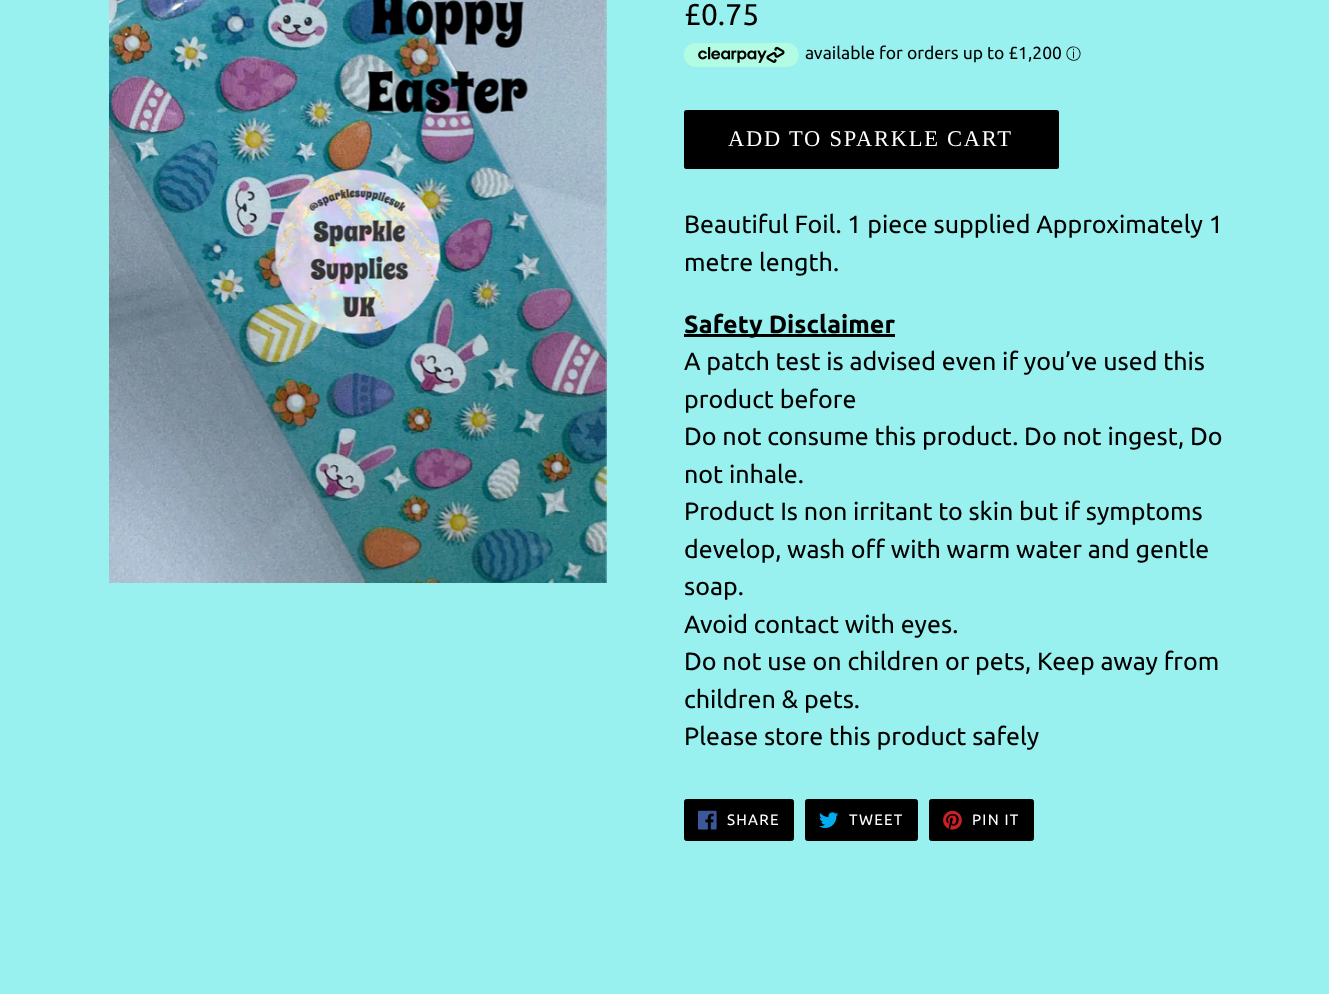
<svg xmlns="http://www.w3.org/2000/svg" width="1329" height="994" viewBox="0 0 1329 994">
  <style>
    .t1 { font: 30px Ubuntu; fill: #000; }
    .t2 { font: 17.5px Ubuntu; fill: #000; }
    .t3 { font: 500 15px WenQuanYi Zen Hei; fill: #000; }
    .t4 { font: 22.5px Liberation Serif; letter-spacing: 1.75px; fill: #fff; }
    .t5 { font: 25px Ubuntu; fill: #000; }
    .t6 { font: bold 25px Ubuntu; fill: #000; }
    .t7 { font: 15px Ubuntu; letter-spacing: 1.25px; fill: #fff; }
  </style>
  <rect width="100%" height="100%" fill="#98f1ef"/>
  <image x="109" y="0" width="498" height="583" href="images/1.png"/>
  <text x="684" y="25" class="t1">£0.75</text>
  <image x="684" y="43" width="115" height="24" href="images/2.png"/>
  <text x="805" y="59" class="t2">available for orders up to £1,200</text>
  <text x="1066" y="59" class="t3">ⓘ</text>
  <rect x="684" y="110" width="375" height="59" rx="2.5" fill="#000"/>
  <text x="728" y="146" class="t4">ADD TO SPARKLE CART</text>
  <text x="684" y="233" class="t5">Beautiful Foil. 1 piece supplied Approximately 1</text>
  <text x="684" y="271" class="t5">metre length.</text>
  <rect x="684" y="334" width="211" height="3" fill="#000"/>
  <text x="684" y="333" class="t6">Safety Disclaimer</text>
  <text x="684" y="370" class="t5">A patch test is advised even if you’ve used this</text>
  <text x="684" y="408" class="t5">product before</text>
  <text x="684" y="445" class="t5">Do not consume this product. Do not ingest, Do</text>
  <text x="684" y="483" class="t5">not inhale.</text>
  <text x="684" y="520" class="t5">Product Is non irritant to skin but if symptoms</text>
  <text x="684" y="558" class="t5">develop, wash off with warm water and gentle</text>
  <text x="684" y="595" class="t5">soap.</text>
  <text x="684" y="633" class="t5">Avoid contact with eyes.</text>
  <text x="684" y="670" class="t5">Do not use on children or pets, Keep away from</text>
  <text x="684" y="708" class="t5">children &amp; pets.</text>
  <text x="684" y="745" class="t5">Please store this product safely</text>
  <rect x="684.5" y="799.5" width="109" height="41" rx="2" fill="#000" stroke="#000"/>
  <image x="698" y="810" width="19" height="20" href="images/3.png"/>
  <text x="727" y="825" class="t7">SHARE</text>
  <rect x="805.5" y="799.5" width="112" height="41" rx="2" fill="#000" stroke="#000"/>
  <image x="819" y="812" width="20" height="16" href="images/4.png"/>
  <text x="849" y="825" class="t7">TWEET</text>
  <rect x="929.5" y="799.5" width="104" height="41" rx="2" fill="#000" stroke="#000"/>
  <image x="943" y="810" width="19" height="20" href="images/5.png"/>
  <text x="972" y="825" class="t7">PIN IT</text>
</svg>
